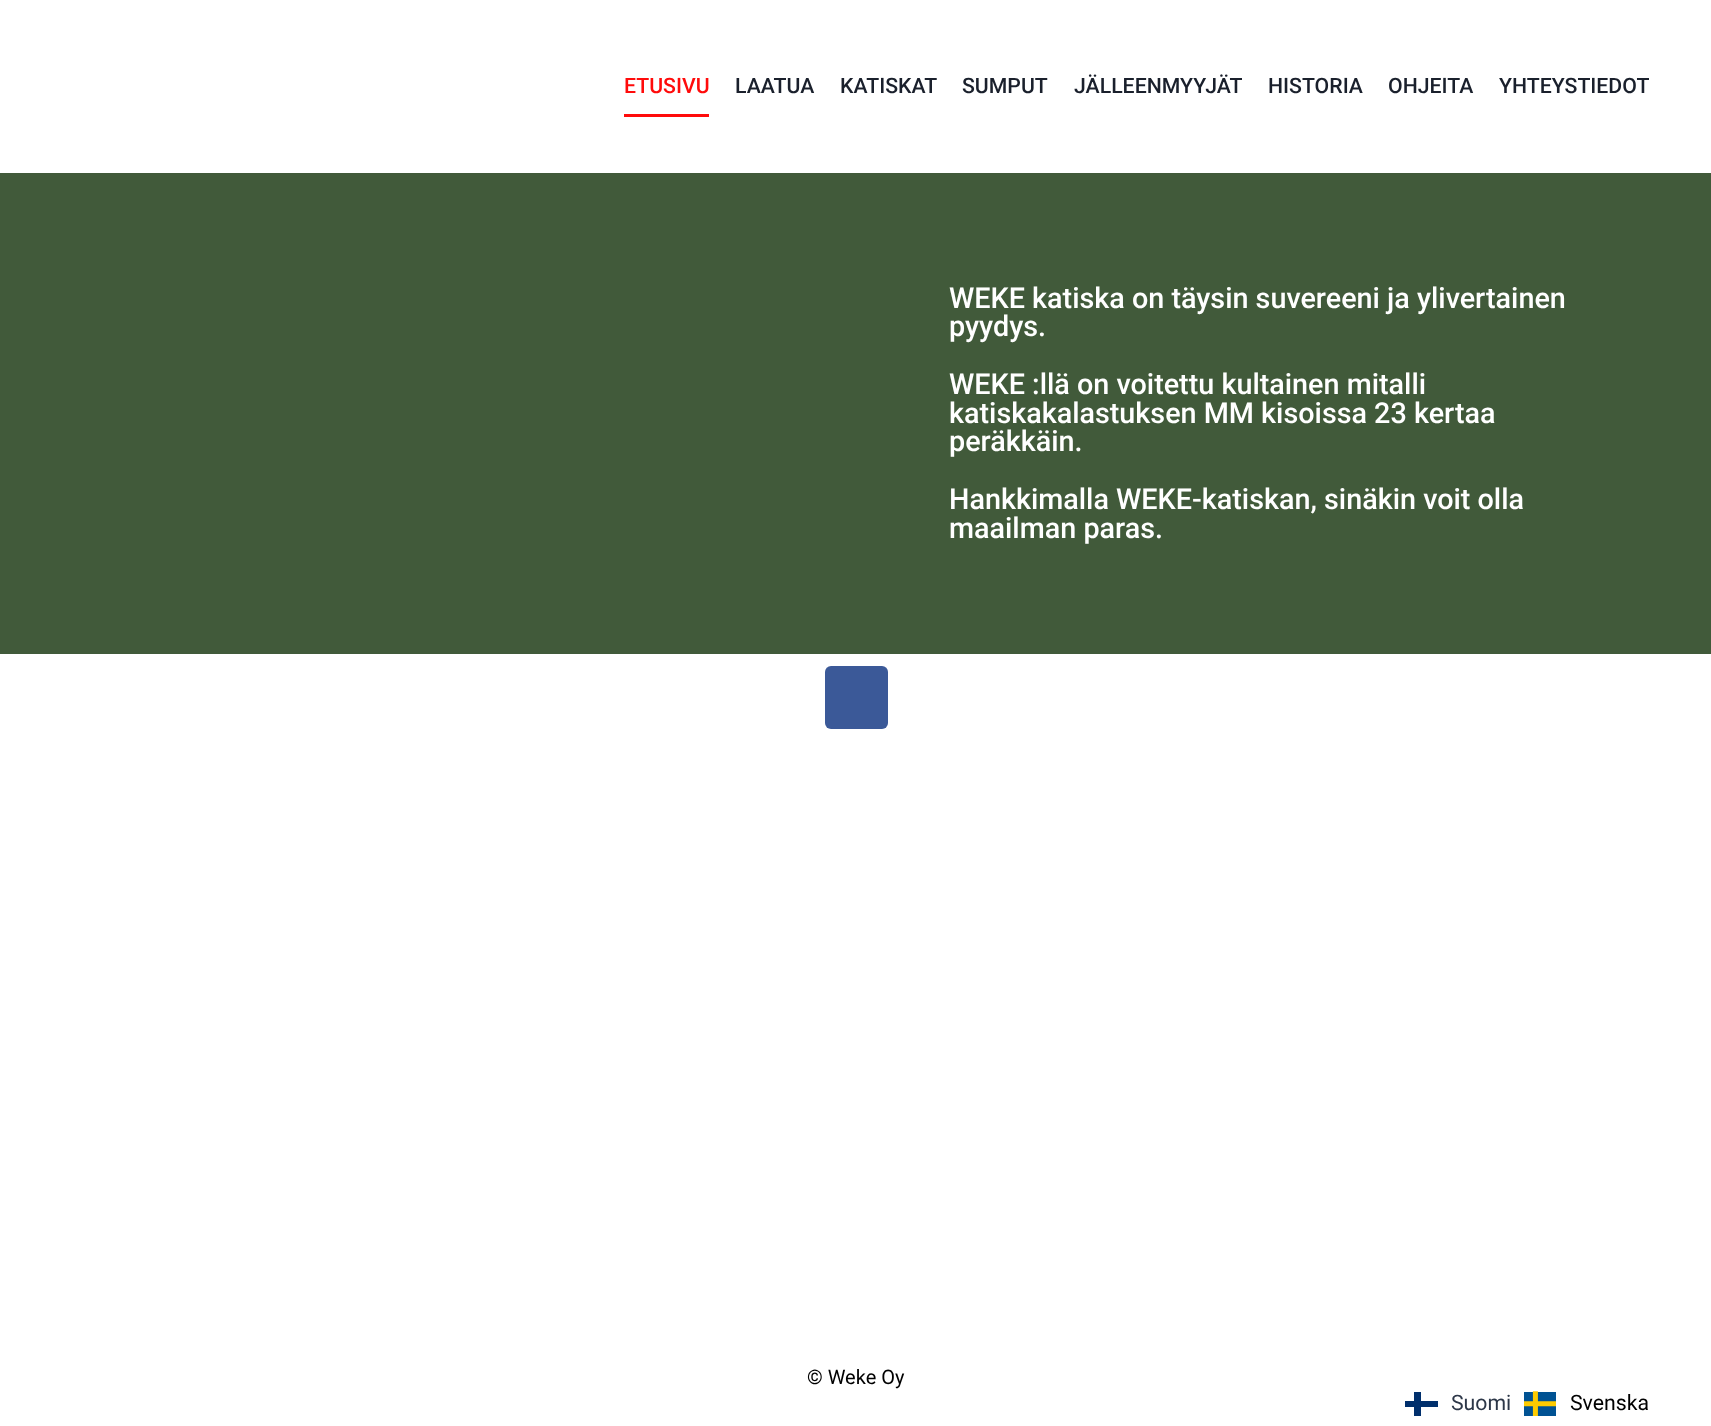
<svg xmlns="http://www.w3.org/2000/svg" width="1711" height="1426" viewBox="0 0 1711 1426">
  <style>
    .t1 { font: 500 21.25px Roboto; fill: #ff0b0b; }
    .t2 { font: 500 21.25px Roboto; fill: #1a202c; }
    .t3 { font: 500 28.75px Roboto; fill: #fff; }
    .t4 { font: 20px Roboto; fill: #000; }
    .t5 { font: 21.25px Roboto; fill: #2d3748; }
    .t6 { font: 21.25px Roboto; fill: #000; }
  </style>
  <rect width="100%" height="100%" fill="#fff"/>
  <text x="624" y="93" class="t1">ETUSIVU</text>
  <rect x="624" y="114" width="85" height="3" fill="#ff0b0b"/>
  <text x="735" y="93" class="t2">LAATUA</text>
  <text x="840" y="93" class="t2">KATISKAT</text>
  <text x="962" y="93" class="t2">SUMPUT</text>
  <text x="1074" y="93" class="t2">JÄLLEENMYYJÄT</text>
  <text x="1268" y="93" class="t2">HISTORIA</text>
  <text x="1388" y="93" class="t2">OHJEITA</text>
  <text x="1499" y="93" class="t2">YHTEYSTIEDOT</text>
  <rect x="0" y="173" width="1711" height="481" fill="#415a3a"/>
  <text x="949" y="308" class="t3">WEKE katiska on täysin suvereeni ja ylivertainen</text>
  <text x="949" y="336" class="t3">pyydys.</text>
  <text x="949" y="394" class="t3">WEKE :llä on voitettu kultainen mitalli</text>
  <text x="949" y="423" class="t3">katiskakalastuksen MM kisoissa 23 kertaa</text>
  <text x="949" y="451" class="t3">peräkkäin.</text>
  <text x="949" y="509" class="t3">Hankkimalla WEKE-katiskan, sinäkin voit olla</text>
  <text x="949" y="538" class="t3">maailman paras.</text>
  <rect x="825" y="666" width="63" height="63" rx="6" fill="#3b5998"/>
  <text x="807" y="1384" class="t4">© Weke Oy</text>
  <rect x="1405" y="1401" width="33" height="6" fill="#002f6c"/>
  <rect x="1414" y="1392" width="7" height="24" fill="#002f6c"/>
  <text x="1451" y="1410" class="t5">Suomi</text>
  <image x="1524" y="1391" width="32" height="25" href="images/1.png"/>
  <text x="1570" y="1410" class="t6">Svenska</text>
</svg>
